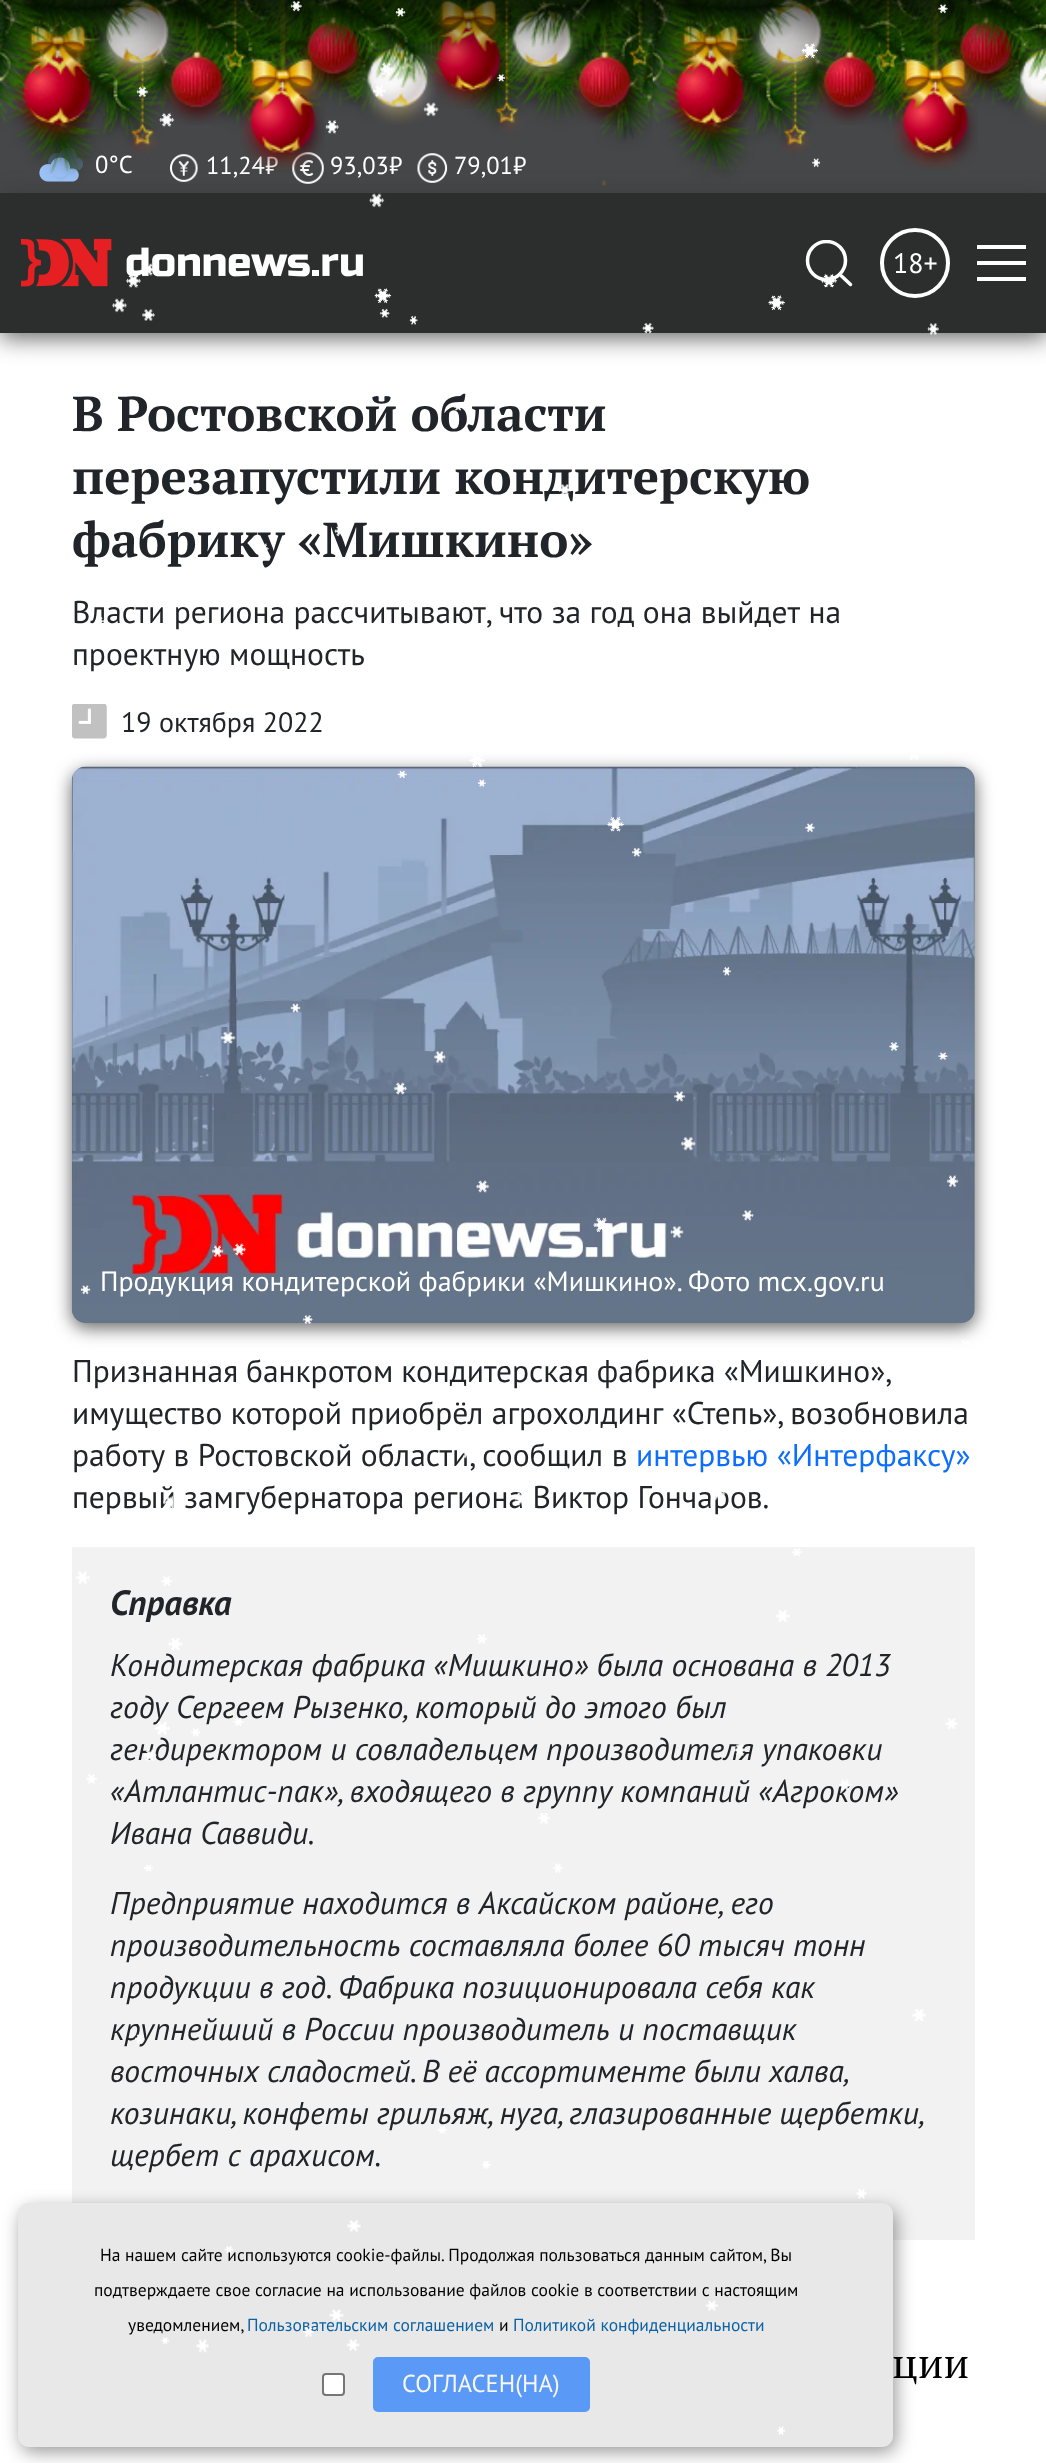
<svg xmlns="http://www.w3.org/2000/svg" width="1046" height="2463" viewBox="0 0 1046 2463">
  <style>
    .t1 { font: 24.5px PT Sans; fill: #fff; }
    .t2 { font: 28px PT Sans; fill: #fff; }
    .t3 { font: bold 49px PT Serif; fill: #212529; }
    .t4 { font: 31.5px PT Sans; fill: #212529; }
    .t5 { font: 28px PT Sans; fill: #212529; }
    .t6 { font: 31.5px PT Sans; fill: #0d6efd; }
    .t7 { font: italic bold 35px PT Sans; fill: #212529; }
    .t8 { font: italic 31.5px PT Sans; fill: #212529; }
    .t9 { font: 42px PT Serif; fill: #000; }
    .t10 { font: 17.5px PT Sans; fill: #000; }
    .t11 { font: 17.5px PT Sans; fill: #0b61a4; }
    .t12 { font: 24.5px PT Sans; fill: #f7f7f7; }
  </style>
  <defs>
    <clipPath id="clip1"><rect x="803" y="240" width="51" height="47"/></clipPath>
  </defs>
  <rect width="100%" height="100%" fill="#fff"/>
  <rect x="0" y="0" width="1046" height="193" fill="#464749"/>
  <rect x="0" y="198" width="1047" height="140" fill="#323232bf" filter="blur(11.5px)"/>
  <image x="39" y="147" width="44" height="35" href="images/38.png"/>
  <text x="95" y="173" class="t1">0°C</text>
  <image x="170" y="154" width="28" height="28" href="images/39.png"/>
  <text x="206" y="174" class="t1">11,24₽</text>
  <image x="292" y="152" width="32" height="32" href="images/40.png"/>
  <text x="330" y="174" class="t1">93,03₽</text>
  <image x="417" y="153" width="31" height="30" href="images/41.png"/>
  <text x="454" y="174" class="t1">79,01₽</text>
  <image x="0" y="0" width="1046" height="186" href="images/1.png"/>
  <image x="13" y="0" width="87" height="143" href="images/3.png"/>
  <image x="0" y="0" width="44" height="123" href="images/2.png"/>
  <image x="95" y="0" width="85" height="83" href="images/5.png"/>
  <image x="43" y="0" width="107" height="47" href="images/4.png"/>
  <image x="240" y="0" width="85" height="173" href="images/6.png"/>
  <image x="297" y="0" width="71" height="91" href="images/7.png"/>
  <image x="357" y="10" width="80" height="115" href="images/13.png"/>
  <image x="309" y="0" width="50" height="54" href="images/8.png"/>
  <image x="426" y="0" width="84" height="109" href="images/10.png"/>
  <image x="358" y="0" width="89" height="88" href="images/9.png"/>
  <image x="503" y="0" width="80" height="86" href="images/11.png"/>
  <image x="161" y="16" width="71" height="109" href="images/12.png"/>
  <image x="569" y="17" width="71" height="108" href="images/16.png"/>
  <image x="506" y="0" width="137" height="49" href="images/14.png"/>
  <image x="642" y="0" width="11" height="121" href="images/15.png"/>
  <image x="665" y="0" width="88" height="143" href="images/18.png"/>
  <image x="652" y="0" width="45" height="123" href="images/17.png"/>
  <image x="747" y="0" width="86" height="83" href="images/20.png"/>
  <image x="696" y="0" width="107" height="47" href="images/19.png"/>
  <image x="893" y="0" width="85" height="170" href="images/21.png"/>
  <image x="950" y="0" width="71" height="91" href="images/22.png"/>
  <image x="814" y="15" width="71" height="110" href="images/23.png"/>
  <image x="1010" y="41" width="36" height="84" href="images/26.png"/>
  <image x="962" y="0" width="50" height="54" href="images/24.png"/>
  <image x="1011" y="0" width="35" height="81" href="images/25.png"/>
  <rect x="0" y="-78" width="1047" height="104" fill="#000000bf" filter="blur(26px)"/>
  <image x="290" y="1" width="12" height="11" href="images/27.png"/>
  <image x="395" y="7" width="11" height="10" href="images/28.png"/>
  <image x="938" y="4" width="10" height="10" href="images/29.png"/>
  <image x="801" y="43" width="18" height="16" href="images/30.png"/>
  <image x="380" y="62" width="13" height="14" href="images/31.png"/>
  <image x="497" y="74" width="8" height="8" href="images/32.png"/>
  <image x="136" y="86" width="12" height="12" href="images/33.png"/>
  <image x="373" y="85" width="13" height="12" href="images/34.png"/>
  <image x="423" y="102" width="16" height="15" href="images/35.png"/>
  <image x="159" y="113" width="16" height="14" href="images/36.png"/>
  <image x="325" y="120" width="14" height="14" href="images/37.png"/>
  <image x="812" y="158" width="8" height="10" href="images/42.png"/>
  <rect x="0" y="193" width="1046" height="140" fill="#2c2e2d"/>
  <image x="369" y="193" width="16" height="15" href="images/43.png"/>
  <image x="21" y="238" width="342" height="49" href="images/45.png"/>
  <image x="148" y="263" width="5" height="13" href="images/44.png"/>
  <g clip-path="url(#clip1)">
    <circle cx="826.5" cy="260.5" r="19" fill="none" stroke="#fff" stroke-width="3.5"/>
  </g>
  <path d="M841.5 276L850.5 284.5" fill="none" stroke="#fff" stroke-width="3.5" stroke-linecap="round" stroke-linejoin="round"/>
  <circle cx="915" cy="263" r="33" fill="none" stroke="#fff" stroke-width="4"/>
  <text x="893" y="273" class="t2">18+</text>
  <rect x="977" y="261" width="49" height="4" fill="#fff"/>
  <rect x="977" y="245" width="49" height="4" fill="#fff"/>
  <rect x="977" y="277" width="49" height="4" fill="#fff"/>
  <image x="126" y="275" width="15" height="13" href="images/46.png"/>
  <image x="820" y="274" width="18" height="14" href="images/47.png"/>
  <image x="112" y="298" width="15" height="15" href="images/48.png"/>
  <image x="374" y="288" width="18" height="16" href="images/49.png"/>
  <image x="768" y="295" width="17" height="16" href="images/50.png"/>
  <image x="142" y="309" width="13" height="12" href="images/51.png"/>
  <image x="379" y="308" width="11" height="10" href="images/52.png"/>
  <image x="409" y="315" width="9" height="10" href="images/53.png"/>
  <image x="642" y="323" width="12" height="11" href="images/54.png"/>
  <image x="927" y="323" width="12" height="12" href="images/55.png"/>
  <text x="72" y="431" class="t3">В Ростовской области</text>
  <text x="72" y="494" class="t3">перезапустили кондитерскую</text>
  <text x="72" y="557" class="t3">фабрику «Мишкино»</text>
  <text x="72" y="623" class="t4">Власти региона рассчитывают, что за год она выйдет на</text>
  <text x="72" y="665" class="t4">проектную мощность</text>
  <image x="72" y="704" width="35" height="35" href="images/56.png"/>
  <text x="121" y="732" class="t5">19 октября 2022</text>
  <rect x="72" y="772" width="903" height="556" rx="14" fill="#323232bf" filter="blur(9px)"/>
  <image x="71" y="766" width="904" height="557" href="images/57.png"/>
  <text x="100" y="1291" class="t2">Продукция кондитерской фабрики «Мишкино». Фото mcx.gov.ru</text>
  <text x="72" y="1382" word-spacing="-0.5" class="t4">Признанная банкротом кондитерская фабрика «Мишкино»,</text>
  <text x="72" y="1424" class="t4">имущество которой приобрёл агрохолдинг «Степь», возобновила</text>
  <text x="72" y="1466" class="t4">работу в Ростовской области, сообщил в</text>
  <text x="636" y="1466" class="t6">интервью «Интерфаксу»</text>
  <text x="72" y="1508" class="t4">первый замгубернатора региона Виктор Гончаров.</text>
  <rect x="72" y="1547" width="903" height="693" fill="#f2f2f2"/>
  <text x="110" y="1615" class="t7">Справка</text>
  <text x="110" y="1676" class="t8">Кондитерская фабрика «Мишкино» была основана в 2013</text>
  <text x="110" y="1718" class="t8">году Сергеем Рызенко, который до этого был</text>
  <text x="110" y="1760" class="t8">гендиректором и совладельцем производителя упаковки</text>
  <text x="110" y="1802" class="t8">«Атлантис-пак», входящего в группу компаний «Агроком»</text>
  <text x="110" y="1844" class="t8">Ивана Саввиди.</text>
  <text x="110" y="1914" class="t8">Предприятие находится в Аксайском районе, его</text>
  <text x="110" y="1956" class="t8">производительность составляла более 60 тысяч тонн</text>
  <text x="110" y="1998" class="t8">продукции в год. Фабрика позиционировала себя как</text>
  <text x="110" y="2040" class="t8">крупнейший в России производитель и поставщик</text>
  <text x="110" y="2082" word-spacing="-0.5" class="t8">восточных сладостей. В её ассортименте были халва,</text>
  <text x="110" y="2124" word-spacing="-0.5" class="t8">козинаки, конфеты грильяж, нуга, глазированные щербетки,</text>
  <text x="110" y="2166" class="t8">щербет с арахисом.</text>
  <text x="892" y="2378" class="t9">ции</text>
  <image x="453" y="406" width="9" height="5" href="images/58.png"/>
  <image x="559" y="484" width="12" height="12" href="images/59.png"/>
  <rect x="806" y="489" width="1" height="1" fill="#c5c6c7"/>
  <image x="334" y="526" width="8" height="11" href="images/60.png"/>
  <image x="264" y="543" width="5" height="7" href="images/61.png"/>
  <image x="94" y="616" width="10" height="7" href="images/62.png"/>
  <image x="469" y="755" width="17" height="12" href="images/63.png"/>
  <image x="910" y="755" width="8" height="5" href="images/64.png"/>
  <image x="397" y="770" width="10" height="8" href="images/65.png"/>
  <image x="478" y="779" width="8" height="8" href="images/66.png"/>
  <image x="607" y="816" width="17" height="16" href="images/67.png"/>
  <image x="805" y="823" width="10" height="10" href="images/68.png"/>
  <image x="631" y="847" width="11" height="10" href="images/69.png"/>
  <image x="722" y="966" width="9" height="10" href="images/70.png"/>
  <image x="290" y="1003" width="11" height="10" href="images/71.png"/>
  <image x="220" y="1031" width="16" height="13" href="images/72.png"/>
  <image x="889" y="1042" width="10" height="9" href="images/73.png"/>
  <image x="434" y="1051" width="12" height="12" href="images/74.png"/>
  <image x="938" y="1052" width="10" height="8" href="images/75.png"/>
  <image x="393" y="1082" width="14" height="13" href="images/76.png"/>
  <image x="673" y="1091" width="13" height="11" href="images/77.png"/>
  <image x="680" y="1136" width="16" height="15" href="images/78.png"/>
  <image x="476" y="1180" width="14" height="13" href="images/79.png"/>
  <image x="946" y="1175" width="13" height="13" href="images/80.png"/>
  <image x="742" y="1210" width="12" height="11" href="images/81.png"/>
  <image x="593" y="1217" width="16" height="16" href="images/82.png"/>
  <image x="670" y="1226" width="14" height="12" href="images/83.png"/>
  <image x="211" y="1245" width="13" height="13" href="images/84.png"/>
  <image x="232" y="1243" width="14" height="13" href="images/85.png"/>
  <image x="80" y="1285" width="11" height="10" href="images/86.png"/>
  <image x="302" y="1315" width="11" height="9" href="images/87.png"/>
  <image x="962" y="1340" width="7" height="4" href="images/88.png"/>
  <image x="462" y="1450" width="5" height="9" href="images/89.png"/>
  <image x="565" y="1465" width="5" height="5" href="images/90.png"/>
  <image x="162" y="1495" width="11" height="13" href="images/91.png"/>
  <image x="514" y="1492" width="8" height="14" href="images/92.png"/>
  <image x="715" y="1491" width="11" height="10" href="images/93.png"/>
  <image x="791" y="1548" width="11" height="8" href="images/94.png"/>
  <image x="76" y="1571" width="14" height="13" href="images/95.png"/>
  <image x="161" y="1576" width="11" height="10" href="images/96.png"/>
  <image x="776" y="1610" width="14" height="12" href="images/97.png"/>
  <image x="168" y="1638" width="15" height="12" href="images/98.png"/>
  <image x="476" y="1634" width="11" height="10" href="images/99.png"/>
  <image x="154" y="1721" width="16" height="14" href="images/100.png"/>
  <image x="191" y="1728" width="10" height="9" href="images/101.png"/>
  <image x="233" y="1717" width="11" height="9" href="images/102.png"/>
  <image x="945" y="1718" width="13" height="11" href="images/103.png"/>
  <image x="144" y="1749" width="13" height="12" href="images/104.png"/>
  <image x="734" y="1744" width="12" height="12" href="images/105.png"/>
  <image x="86" y="1774" width="11" height="10" href="images/106.png"/>
  <image x="839" y="1779" width="12" height="12" href="images/107.png"/>
  <image x="538" y="1813" width="12" height="11" href="images/108.png"/>
  <image x="144" y="1865" width="9" height="7" href="images/109.png"/>
  <image x="553" y="1863" width="10" height="10" href="images/110.png"/>
  <image x="912" y="2009" width="14" height="12" href="images/111.png"/>
  <image x="134" y="2034" width="11" height="9" href="images/112.png"/>
  <image x="438" y="2126" width="9" height="8" href="images/113.png"/>
  <image x="482" y="2161" width="9" height="8" href="images/114.png"/>
  <rect x="21" y="2209" width="875" height="243" rx="11" fill="#00000066" filter="blur(9px)"/>
  <image x="856" y="2189" width="11" height="10" href="images/115.png"/>
  <rect x="18" y="2203" width="875" height="244" rx="11" fill="#e8e8e8"/>
  <image x="347" y="2220" width="14" height="12" href="images/116.png"/>
  <text x="100" y="2261" class="t10">На нашем сайте используются cookie-файлы. Продолжая пользоваться данным сайтом, Вы</text>
  <image x="224" y="2246" width="10" height="8" href="images/117.png"/>
  <text x="94" y="2296" class="t10">подтверждаете свое согласие на использование файлов cookie в соответствии с настоящим</text>
  <text x="128" y="2331" class="t10">уведомлением,</text>
  <text x="247" y="2331" class="t11">Пользовательским соглашением</text>
  <text x="499" y="2331" class="t10">и</text>
  <text x="513" y="2331" class="t11">Политикой конфиденциальности</text>
  <rect x="323" y="2374" width="21" height="21" rx="3" fill="#fff" stroke="#767676" stroke-width="2"/>
  <rect x="374" y="2358" width="215" height="53" rx="4" fill="#5a99f6" stroke="#5a99f6" stroke-width="2"/>
  <text x="402" y="2392" class="t12">СОГЛАСЕН(НА)</text>
  <image x="705" y="2300" width="14" height="11" href="images/118.png"/>
  <image x="329" y="2309" width="15" height="12" href="images/119.png"/>
  <image x="303" y="2326" width="12" height="11" href="images/120.png"/>
  <image x="161" y="2337" width="8" height="7" href="images/121.png"/>
  <image x="196" y="2339" width="13" height="14" href="images/122.png"/>
  <image x="347" y="2339" width="13" height="12" href="images/123.png"/>
  <image x="777" y="2426" width="8" height="9" href="images/124.png"/>
</svg>
